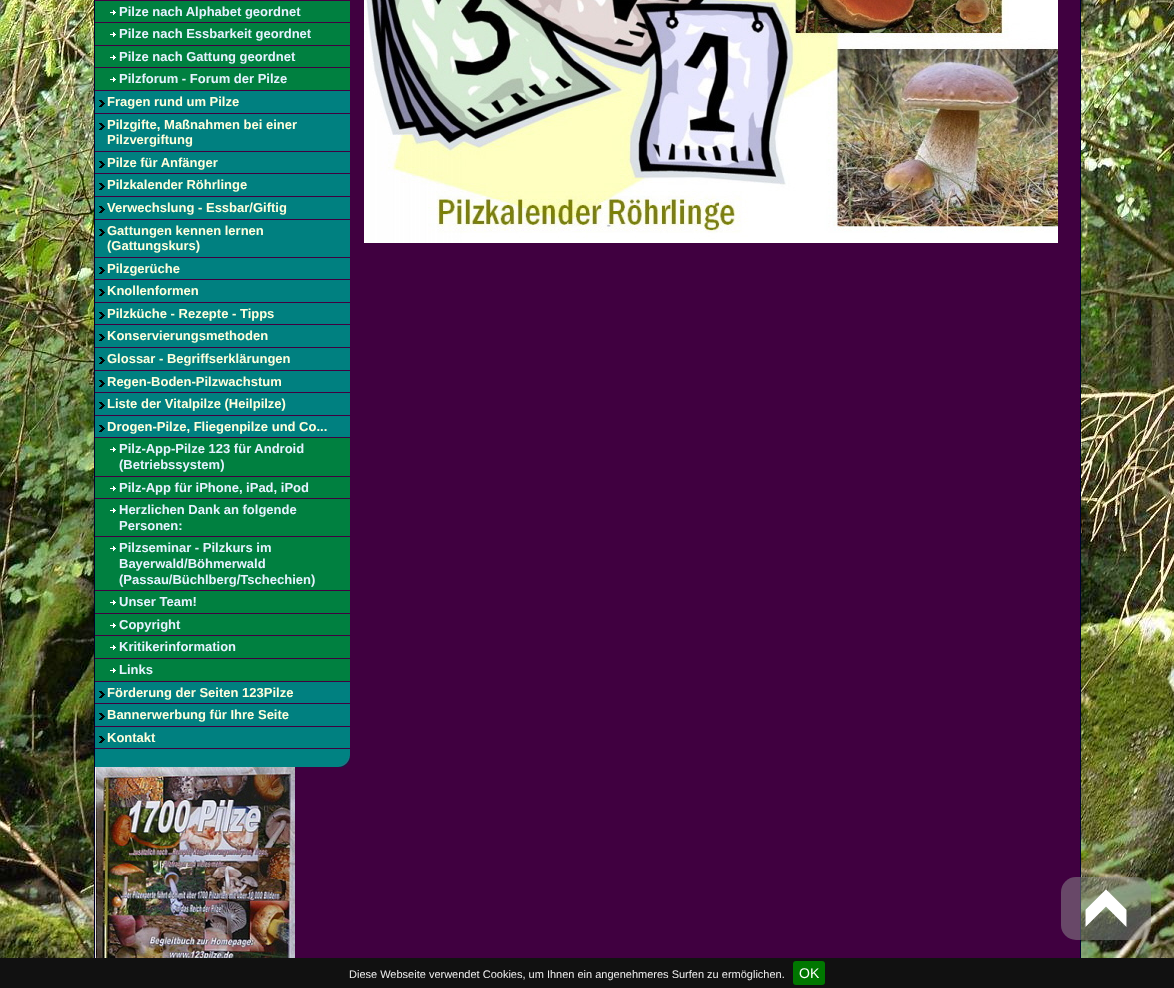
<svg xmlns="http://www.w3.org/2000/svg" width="1174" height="988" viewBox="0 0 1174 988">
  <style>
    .t1 { font: bold 13px Liberation Sans; fill: #e6f2ff; }
    .t2 { font: bold 13px Liberation Sans; fill: #ffd; }
    .t3 { font: 11px Liberation Sans; fill: #eee; }
    .t4 { font: 14px Liberation Sans; fill: #fff; }
  </style>
  <rect width="100%" height="100%" fill="#fff"/>
  <image x="0" y="0" width="1174" height="958" href="images/1.png"/>
  <rect x="94.5" y="-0.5" width="986" height="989" fill="none" stroke="#00002d"/>
  <rect x="95" y="0" width="985" height="958" fill="#400040"/>
  <rect x="95" y="1" width="255" height="21" fill="#008040"/>
  <image x="110" y="10" width="6" height="5" href="images/2.png"/>
  <text x="119" y="16" class="t1">Pilze nach Alphabet geordnet</text>
  <rect x="95" y="23" width="255" height="22" fill="#008040"/>
  <image x="110" y="32" width="6" height="5" href="images/2.png"/>
  <text x="119" y="38" class="t1">Pilze nach Essbarkeit geordnet</text>
  <rect x="95" y="46" width="255" height="21" fill="#008040"/>
  <image x="110" y="55" width="6" height="5" href="images/2.png"/>
  <text x="119" y="61" class="t1">Pilze nach Gattung geordnet</text>
  <rect x="95" y="68" width="255" height="22" fill="#008040"/>
  <image x="110" y="77" width="6" height="5" href="images/2.png"/>
  <text x="119" y="83" class="t1">Pilzforum - Forum der Pilze</text>
  <rect x="95" y="91" width="255" height="22" fill="#008080"/>
  <image x="99" y="100" width="6" height="7" href="images/3.png"/>
  <text x="107" y="106" class="t2">Fragen rund um Pilze</text>
  <rect x="95" y="114" width="255" height="37" fill="#008080"/>
  <image x="99" y="123" width="6" height="7" href="images/3.png"/>
  <text x="107" y="129" class="t2">Pilzgifte, Maßnahmen bei einer</text>
  <text x="107" y="144" class="t2">Pilzvergiftung</text>
  <rect x="95" y="152" width="255" height="21" fill="#008080"/>
  <image x="99" y="161" width="6" height="7" href="images/3.png"/>
  <text x="107" y="167" class="t2">Pilze für Anfänger</text>
  <rect x="95" y="174" width="255" height="22" fill="#008080"/>
  <image x="99" y="183" width="6" height="7" href="images/3.png"/>
  <text x="107" y="189" class="t2">Pilzkalender Röhrlinge</text>
  <rect x="95" y="197" width="255" height="22" fill="#008080"/>
  <image x="99" y="206" width="6" height="7" href="images/3.png"/>
  <text x="107" y="212" class="t2">Verwechslung - Essbar/Giftig</text>
  <rect x="95" y="220" width="255" height="37" fill="#008080"/>
  <image x="99" y="229" width="6" height="7" href="images/3.png"/>
  <text x="107" y="235" class="t2">Gattungen kennen lernen</text>
  <text x="107" y="250" class="t2">(Gattungskurs)</text>
  <rect x="95" y="258" width="255" height="21" fill="#008080"/>
  <image x="99" y="267" width="6" height="7" href="images/3.png"/>
  <text x="107" y="273" class="t2">Pilzgerüche</text>
  <rect x="95" y="280" width="255" height="22" fill="#008080"/>
  <image x="99" y="289" width="6" height="7" href="images/3.png"/>
  <text x="107" y="295" class="t2">Knollenformen</text>
  <rect x="95" y="303" width="255" height="21" fill="#008080"/>
  <image x="99" y="312" width="6" height="7" href="images/3.png"/>
  <text x="107" y="318" class="t2">Pilzküche - Rezepte - Tipps</text>
  <rect x="95" y="325" width="255" height="22" fill="#008080"/>
  <image x="99" y="334" width="6" height="7" href="images/3.png"/>
  <text x="107" y="340" class="t2">Konservierungsmethoden</text>
  <rect x="95" y="348" width="255" height="22" fill="#008080"/>
  <image x="99" y="357" width="6" height="7" href="images/3.png"/>
  <text x="107" y="363" class="t2">Glossar - Begriffserklärungen</text>
  <rect x="95" y="371" width="255" height="21" fill="#008080"/>
  <image x="99" y="380" width="6" height="7" href="images/3.png"/>
  <text x="107" y="386" class="t2">Regen-Boden-Pilzwachstum</text>
  <rect x="95" y="393" width="255" height="22" fill="#008080"/>
  <image x="99" y="402" width="6" height="7" href="images/3.png"/>
  <text x="107" y="408" class="t2">Liste der Vitalpilze (Heilpilze)</text>
  <rect x="95" y="416" width="255" height="21" fill="#008080"/>
  <image x="99" y="425" width="6" height="7" href="images/3.png"/>
  <text x="107" y="431" class="t2">Drogen-Pilze, Fliegenpilze und Co...</text>
  <rect x="95" y="438" width="255" height="38" fill="#008040"/>
  <image x="110" y="447" width="6" height="5" href="images/2.png"/>
  <text x="119" y="453" class="t1">Pilz-App-Pilze 123 für Android</text>
  <text x="119" y="469" class="t1">(Betriebssystem)</text>
  <rect x="95" y="477" width="255" height="21" fill="#008040"/>
  <image x="110" y="486" width="6" height="5" href="images/2.png"/>
  <text x="119" y="492" class="t1">Pilz-App für iPhone, iPad, iPod</text>
  <rect x="95" y="499" width="255" height="37" fill="#008040"/>
  <image x="110" y="508" width="6" height="5" href="images/2.png"/>
  <text x="119" y="514" class="t1">Herzlichen Dank an folgende</text>
  <text x="119" y="530" class="t1">Personen:</text>
  <rect x="95" y="537" width="255" height="53" fill="#008040"/>
  <image x="110" y="546" width="6" height="5" href="images/2.png"/>
  <text x="119" y="552" class="t1">Pilzseminar - Pilzkurs im</text>
  <text x="119" y="568" class="t1">Bayerwald/Böhmerwald</text>
  <text x="119" y="584" class="t1">(Passau/Büchlberg/Tschechien)</text>
  <rect x="95" y="591" width="255" height="22" fill="#008040"/>
  <image x="110" y="600" width="6" height="5" href="images/2.png"/>
  <text x="119" y="606" class="t1">Unser Team!</text>
  <rect x="95" y="614" width="255" height="21" fill="#008040"/>
  <image x="110" y="623" width="6" height="5" href="images/2.png"/>
  <text x="119" y="629" class="t1">Copyright</text>
  <rect x="95" y="636" width="255" height="22" fill="#008040"/>
  <image x="110" y="645" width="6" height="5" href="images/2.png"/>
  <text x="119" y="651" class="t1">Kritikerinformation</text>
  <rect x="95" y="659" width="255" height="22" fill="#008040"/>
  <image x="110" y="668" width="6" height="5" href="images/2.png"/>
  <text x="119" y="674" class="t1">Links</text>
  <rect x="95" y="682" width="255" height="21" fill="#008080"/>
  <image x="99" y="691" width="6" height="7" href="images/3.png"/>
  <text x="107" y="697" class="t2">Förderung der Seiten 123Pilze</text>
  <rect x="95" y="704" width="255" height="22" fill="#008080"/>
  <image x="99" y="713" width="6" height="7" href="images/3.png"/>
  <text x="107" y="719" class="t2">Bannerwerbung für Ihre Seite</text>
  <rect x="95" y="727" width="255" height="21" fill="#008080"/>
  <image x="99" y="736" width="6" height="7" href="images/3.png"/>
  <text x="107" y="742" class="t2">Kontakt</text>
  <image x="95" y="749" width="255" height="18" href="images/4.png"/>
  <image x="95" y="767" width="200" height="191" href="images/5.png"/>
  <image x="364" y="0" width="694" height="243" href="images/6.png"/>
  <image x="1061" y="877" width="90" height="63" href="images/7.png"/>
  <rect x="0" y="958" width="1174" height="30" fill="#111"/>
  <text x="349" y="978" class="t3">Diese Webseite verwendet Cookies, um Ihnen ein angenehmeres Surfen zu ermöglichen.</text>
  <rect x="793" y="961" width="32" height="24" rx="3" fill="#070"/>
  <text x="799" y="978" class="t4">OK</text>
</svg>
